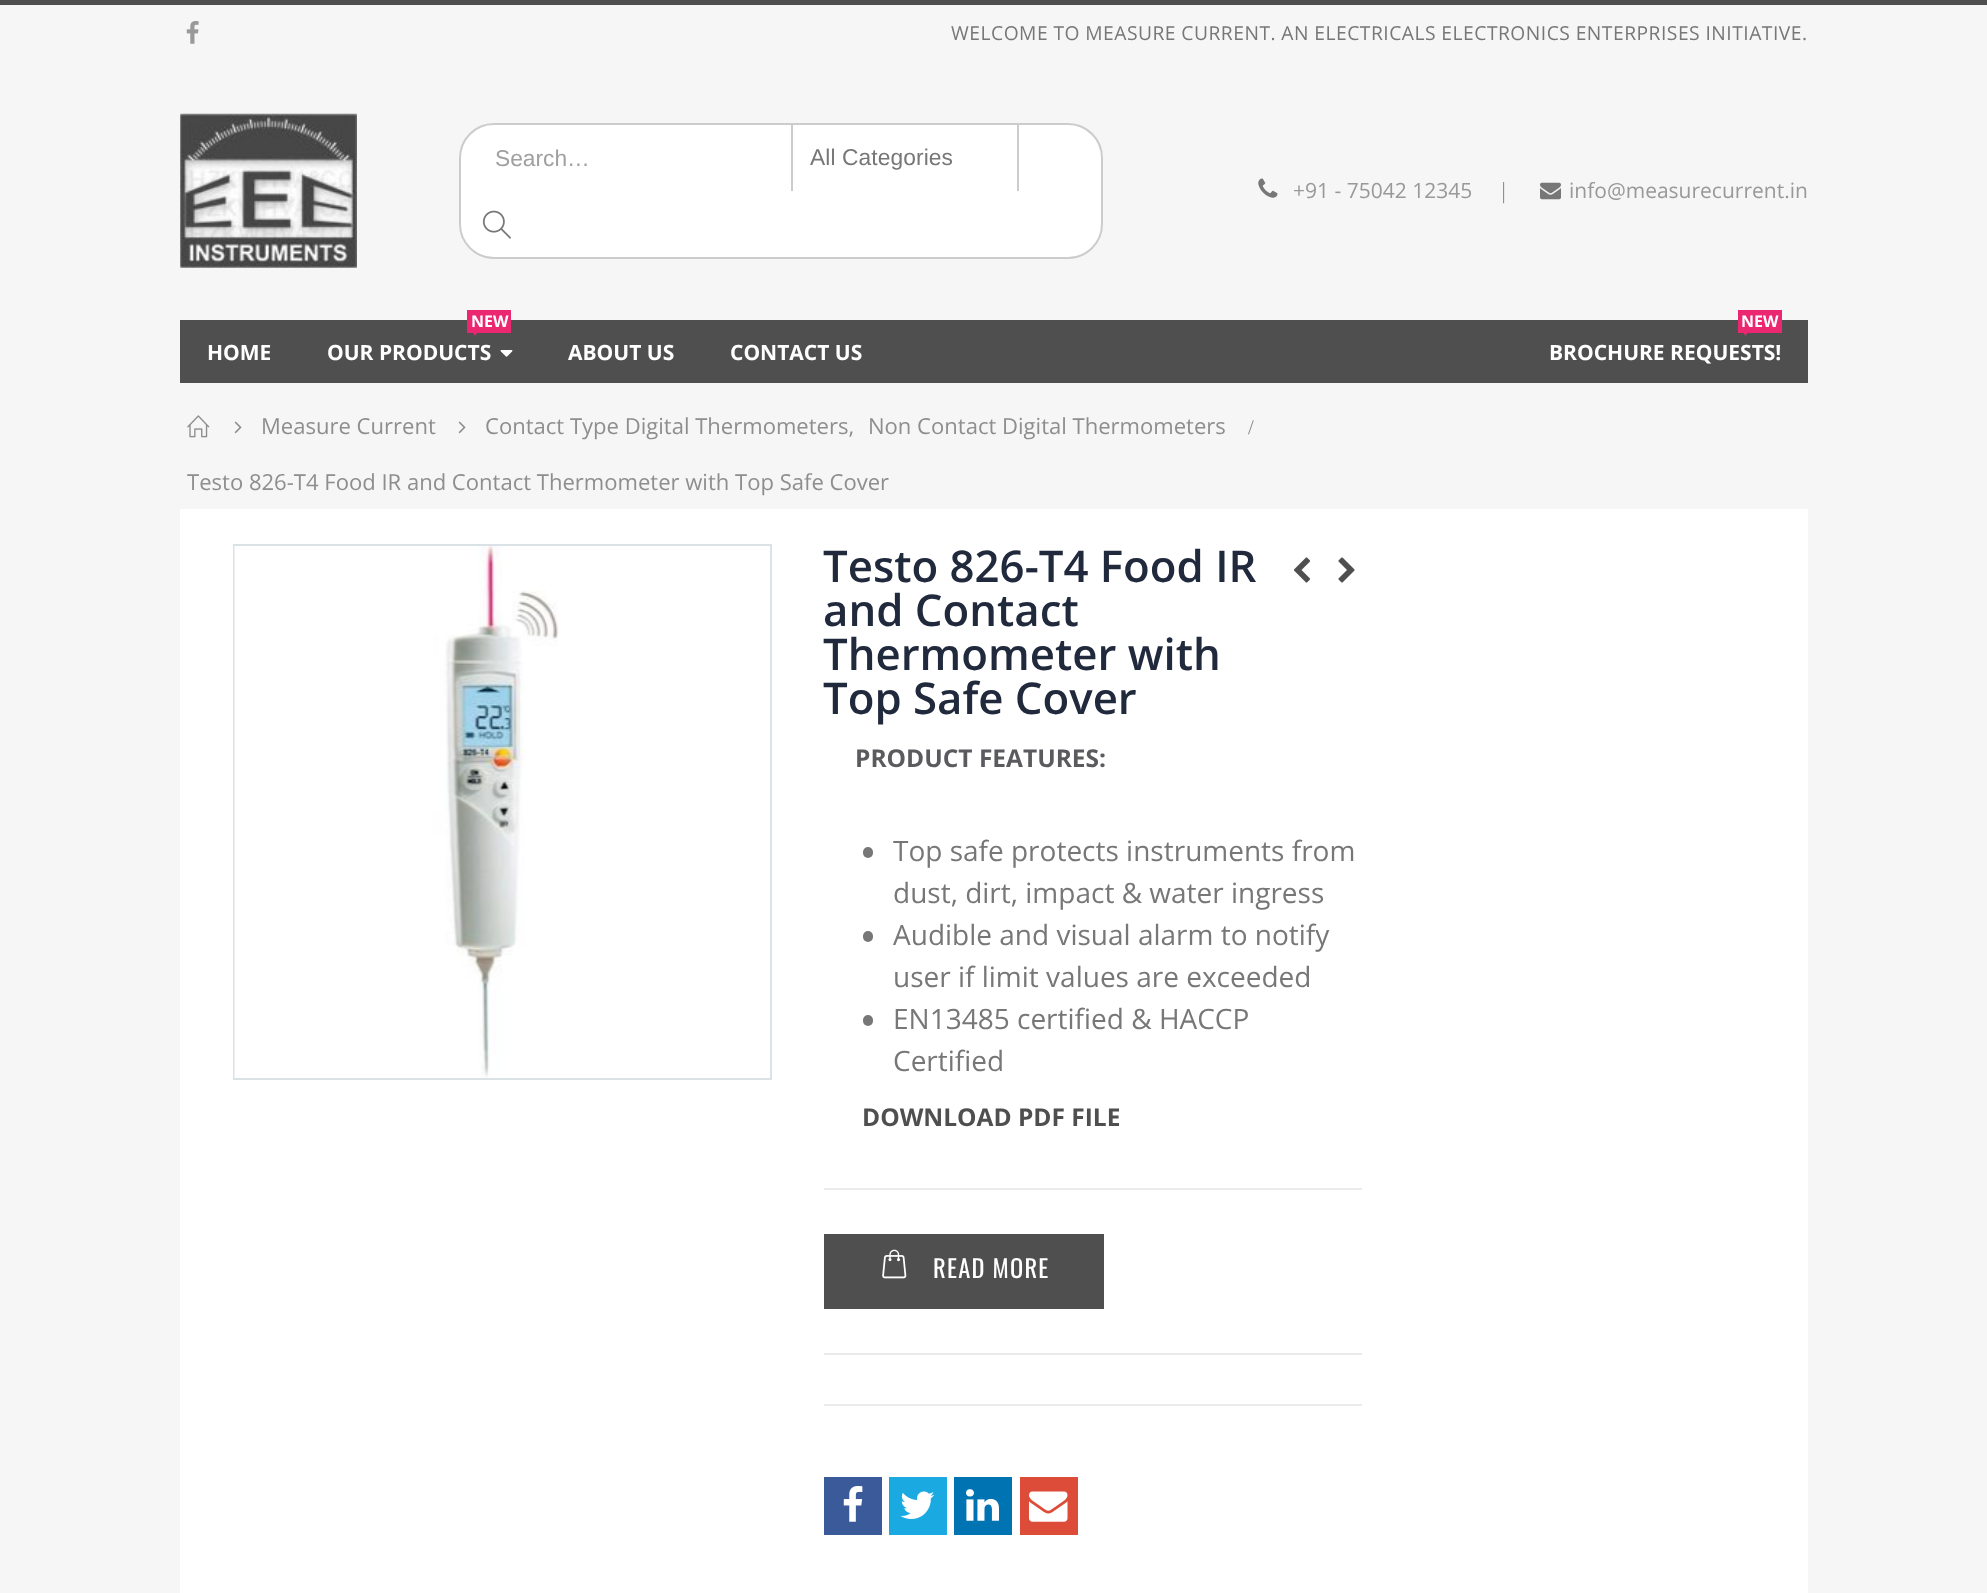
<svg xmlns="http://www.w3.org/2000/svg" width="1987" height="1593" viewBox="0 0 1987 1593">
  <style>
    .t1 { font: 19.25px Open Sans; letter-spacing: 0.5px; fill: #777; }
    .t2 { font: 22.75px Liberation Sans; fill: #a0a0a0; }
    .t3 { font: 22.75px Liberation Sans; letter-spacing: 0.1px; fill: #777; }
    .t4 { font: 21px Open Sans; fill: #999; }
    .t5 { font: 300 21px Open Sans; fill: #777; }
    .t6 { font: bold 21px Open Sans; fill: #fff; }
    .t7 { font: bold 16px Open Sans; fill: #fff; }
    .t8 { font: 22.05px Open Sans; fill: #8e8e8e; }
    .t9 { font: 21px Liberation Serif; fill: #8e8e8e; }
    .t10 { font: 600 43.75px Open Sans; fill: #21293c; }
    .t11 { font: bold 24.5px Open Sans; fill: #5b5b5f; }
    .t12 { font: 28px Open Sans; fill: #777; }
    .t13 { font: bold 24.5px Open Sans; fill: #4f4f4f; }
    .t14 { font: 24.5px Oswald; letter-spacing: 1.25px; fill: #fff; }
  </style>
  <rect width="100%" height="100%" fill="#f6f6f6"/>
  <rect x="0" y="0" width="1987" height="5" fill="#4f4f4f"/>
  <image x="186" y="21" width="13" height="23" href="images/1.png"/>
  <text x="951" y="40" word-spacing="-0.25" class="t1">WELCOME TO MEASURE CURRENT. AN ELECTRICALS ELECTRONICS ENTERPRISES INITIATIVE.</text>
  <image x="180" y="113" width="177" height="155" href="images/2.png"/>
  <rect x="460" y="124" width="642" height="134" rx="34" fill="#fff" stroke="#ccc" stroke-width="2"/>
  <rect x="791" y="124" width="2" height="67" fill="#ccc"/>
  <text x="495" y="166" class="t2">Search…</text>
  <rect x="1017" y="124" width="2" height="67" fill="#ccc"/>
  <text x="810" y="165" class="t3">All Categories</text>
  <image x="482" y="210" width="29" height="29" href="images/3.png"/>
  <image x="1258" y="178" width="20" height="20" href="images/4.png"/>
  <text x="1293" y="198" class="t4">+91 - 75042 12345</text>
  <text x="1498" y="198" class="t5">|</text>
  <image x="1540" y="182" width="21" height="18" href="images/5.png"/>
  <text x="1569" y="198" class="t4">info@measurecurrent.in</text>
  <rect x="180" y="320" width="1628" height="63" fill="#4f4f4f"/>
  <text x="207" y="360" class="t6">HOME</text>
  <rect x="467" y="310" width="44" height="23" fill="#eb2771"/>
  <text x="471" y="327" class="t7">NEW</text>
  <path d="M471 329H479.5L475 336Z" fill="#eb2771"/>
  <text x="327" y="360" class="t6">OUR PRODUCTS</text>
  <image x="500" y="350" width="13" height="7" href="images/6.png"/>
  <text x="568" y="360" class="t6">ABOUT US</text>
  <text x="730" y="360" class="t6">CONTACT US</text>
  <rect x="1738" y="310" width="44" height="23" fill="#eb2771"/>
  <text x="1741" y="327" class="t7">NEW</text>
  <path d="M1741 329H1750L1745.5 336Z" fill="#eb2771"/>
  <text x="1549" y="360" class="t6">BROCHURE REQUESTS!</text>
  <image x="187" y="415" width="23" height="23" href="images/7.png"/>
  <image x="234" y="421" width="8" height="13" href="images/8.png"/>
  <text x="261" y="434" class="t8">Measure Current</text>
  <image x="458" y="421" width="8" height="13" href="images/8.png"/>
  <text x="485" y="434" class="t8">Contact Type Digital Thermometers,</text>
  <text x="868" y="434" class="t8">Non Contact Digital Thermometers</text>
  <text x="1248" y="434" class="t9">/</text>
  <text x="187" y="490" class="t8">Testo 826-T4 Food IR and Contact Thermometer with Top Safe Cover</text>
  <rect x="180" y="509" width="1628" height="1084" fill="#fff"/>
  <rect x="234" y="545" width="537" height="534" fill="none" stroke="#dae2e6" stroke-width="2"/>
  <image x="234" y="546" width="325" height="532" href="images/9.png"/>
  <text x="823" y="582" class="t10">Testo 826-T4 Food IR</text>
  <text x="823" y="626" class="t10">and Contact</text>
  <text x="823" y="670" class="t10">Thermometer with</text>
  <text x="823" y="714" class="t10">Top Safe Cover</text>
  <image x="1293" y="557" width="17" height="26" href="images/10.png"/>
  <image x="1338" y="557" width="17" height="26" href="images/11.png"/>
  <text x="855" y="767" class="t11">PRODUCT FEATURES:</text>
  <rect x="863" y="847" width="10" height="11" rx="5" fill="#777"/>
  <text x="893" y="861" class="t12">Top safe protects instruments from</text>
  <text x="893" y="903" class="t12">dust, dirt, impact &amp; water ingress</text>
  <rect x="863" y="931" width="10" height="11" rx="5" fill="#777"/>
  <text x="893" y="945" class="t12">Audible and visual alarm to notify</text>
  <text x="893" y="987" class="t12">user if limit values are exceeded</text>
  <rect x="863" y="1015" width="10" height="11" rx="5" fill="#777"/>
  <text x="893" y="1029" class="t12">EN13485 certified &amp; HACCP</text>
  <text x="893" y="1071" class="t12">Certified</text>
  <text x="862" y="1126" class="t13">DOWNLOAD PDF FILE</text>
  <rect x="824" y="1188" width="538" height="2" fill="#ebebeb"/>
  <rect x="824" y="1353" width="538" height="2" fill="#ebebeb"/>
  <rect x="824" y="1234" width="280" height="75" fill="#4f4f4f"/>
  <image x="882" y="1249" width="25" height="30" href="images/12.png"/>
  <text x="933" y="1278" class="t14">READ MORE</text>
  <rect x="824" y="1404" width="538" height="2" fill="#ebebeb"/>
  <rect x="824" y="1477" width="58" height="58" fill="#3b5a9a"/>
  <image x="843" y="1486" width="20" height="36" href="images/13.png"/>
  <rect x="889" y="1477" width="58" height="58" fill="#1aa9e1"/>
  <image x="900" y="1491" width="35" height="28" href="images/14.png"/>
  <rect x="954" y="1477" width="58" height="58" fill="#0073b2"/>
  <image x="966" y="1489" width="33" height="32" href="images/15.png"/>
  <rect x="1020" y="1477" width="58" height="58" fill="#dd4b39"/>
  <image x="1029" y="1491" width="39" height="31" href="images/16.png"/>
</svg>
